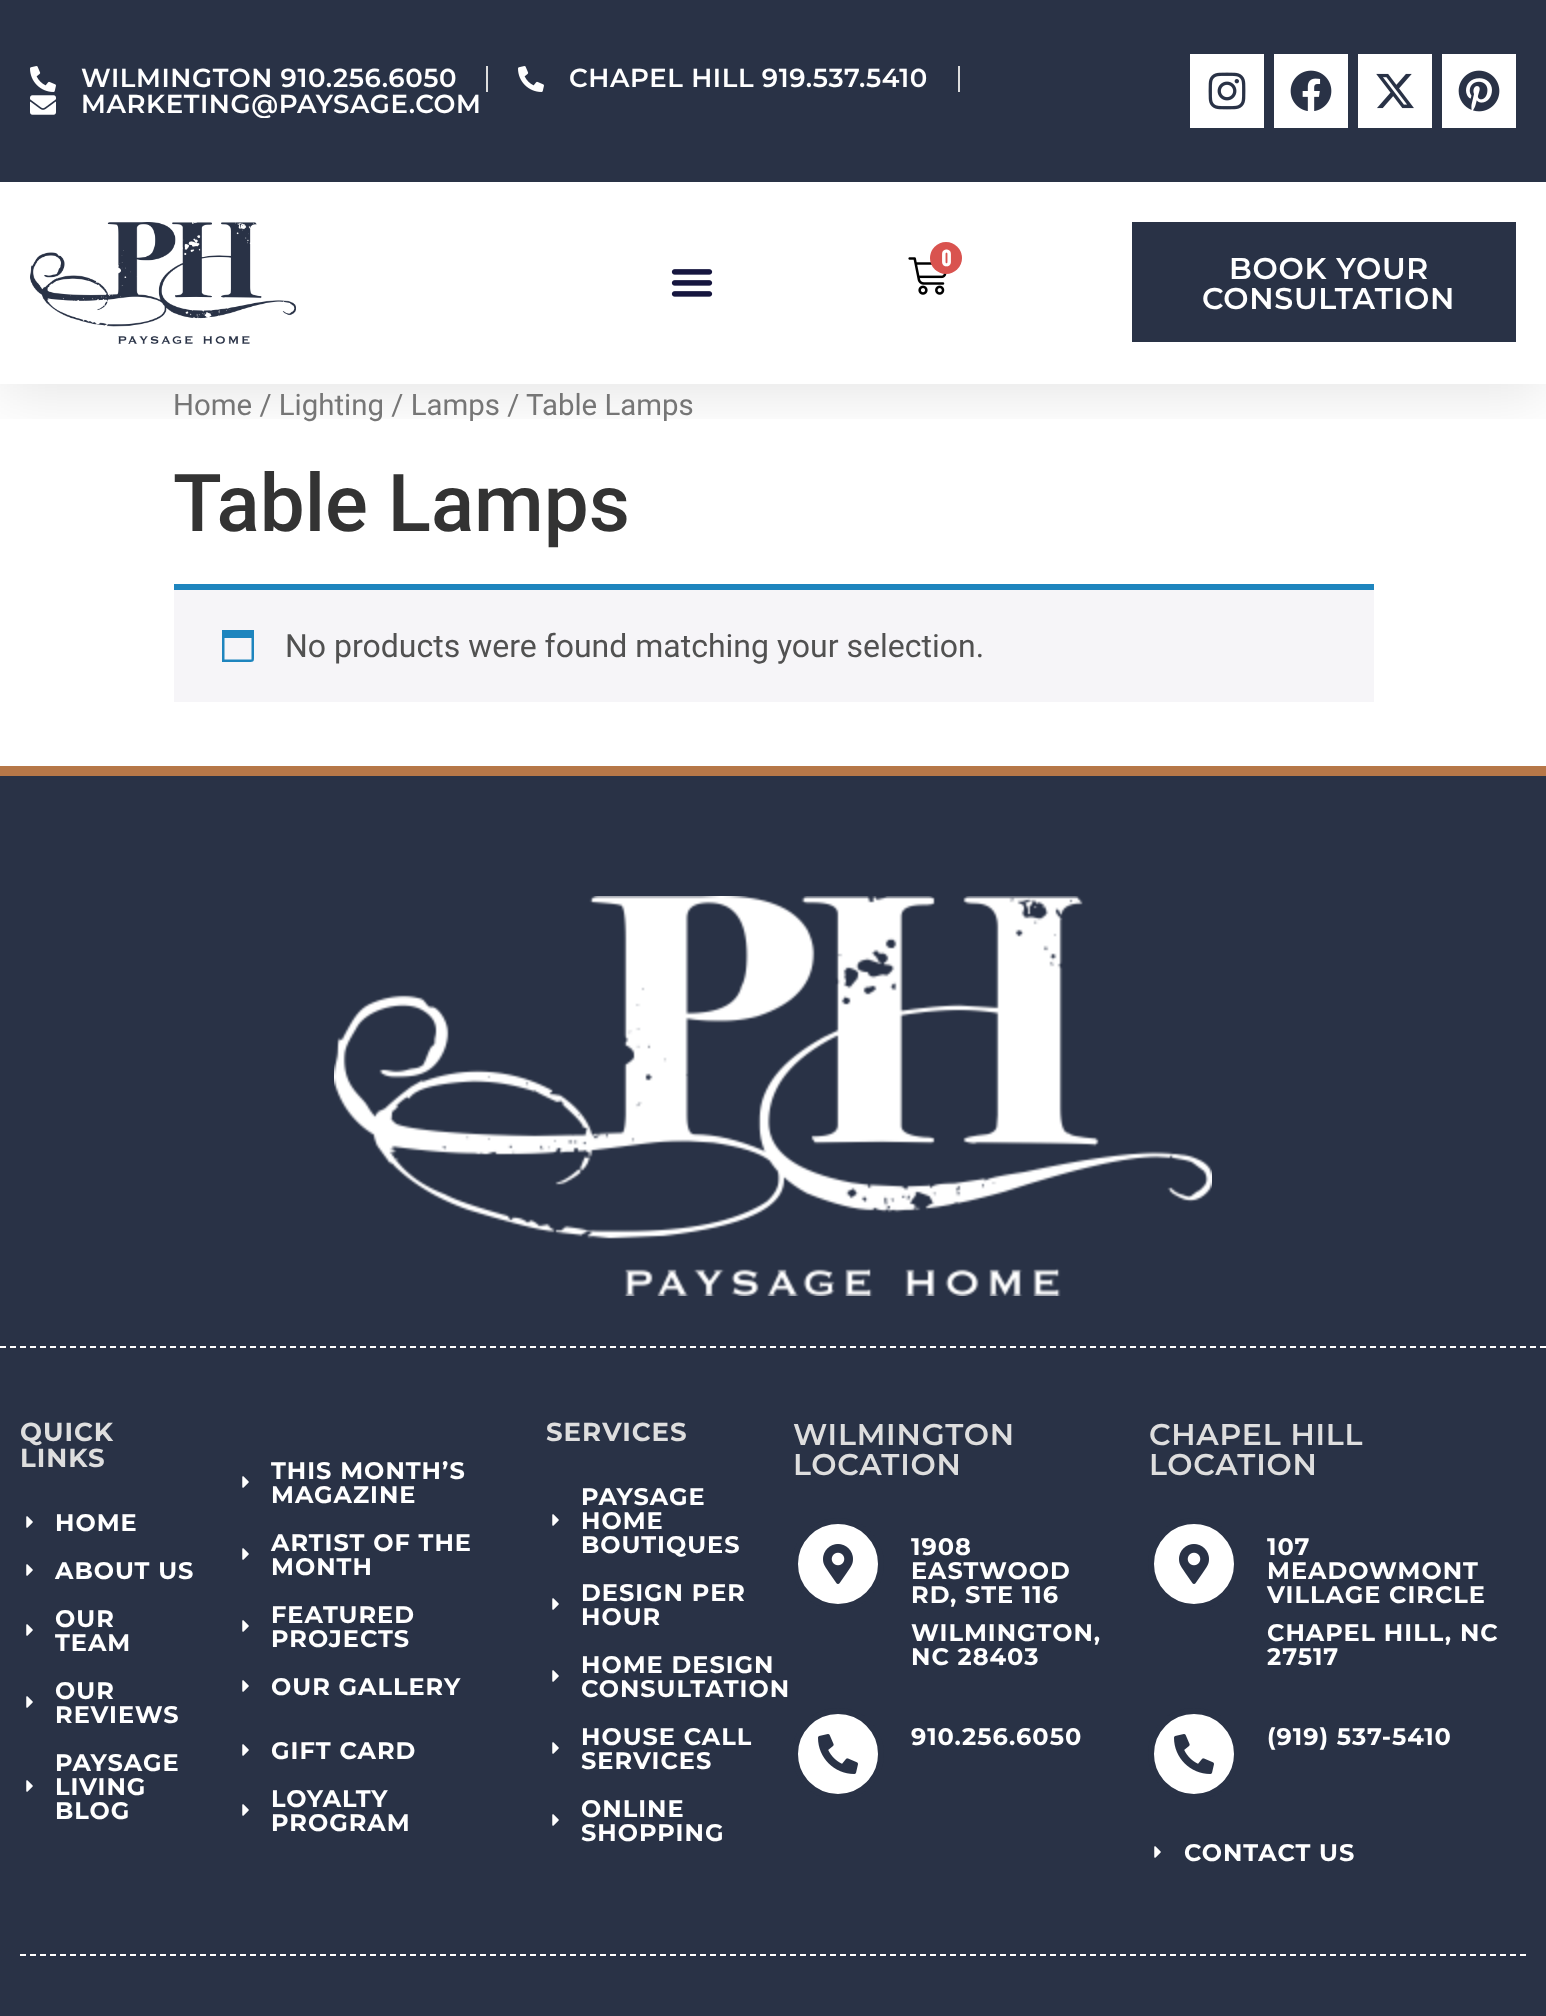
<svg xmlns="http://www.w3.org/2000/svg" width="1546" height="2016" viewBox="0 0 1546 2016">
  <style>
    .t1 { font: 600 26px Montserrat; letter-spacing: 0.6px; fill: #fff; }
    .t2 { font: bold 20px Oswald; letter-spacing: 1px; fill: #fff; }
    .t3 { font: 600 30px Montserrat; letter-spacing: 0.75px; fill: #fff; }
    .t4 { font: 29.4px Roboto; fill: #767676; }
    .t5 { font: 500 80px Roboto; fill: #333; }
    .t6 { font: 32px Roboto; fill: #515151; }
    .t7 { font: bold 26px Montserrat; letter-spacing: 1px; fill: #dedede; }
    .t8 { font: bold 24px Montserrat; letter-spacing: 1px; fill: #fff; }
    .t9 { font: 600 30px Montserrat; letter-spacing: 0.75px; fill: #dedede; }
  </style>
  <defs>
    <clipPath id="clip1"><rect x="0" y="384" width="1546" height="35"/></clipPath>
    <clipPath id="clip2"><rect x="30" y="66" width="1068" height="52"/></clipPath>
  </defs>
  <rect width="100%" height="100%" fill="#fff"/>
  <g clip-path="url(#clip1)">
    <rect x="0" y="10" width="1546" height="384" fill="#0000001a" filter="blur(30px)"/>
  </g>
  <rect x="0" y="0" width="1546" height="182" fill="#293246"/>
  <image x="30" y="66" width="26" height="26" href="images/1.png"/>
  <text x="81" y="87" class="t1">WILMINGTON 910.256.6050</text>
  <rect x="486" y="66" width="2" height="26" fill="#ddd"/>
  <image x="518" y="66" width="26" height="26" href="images/1.png"/>
  <text x="569" y="87" class="t1">CHAPEL HILL 919.537.5410</text>
  <rect x="958" y="66" width="2" height="26" fill="#ddd"/>
  <image x="30" y="95" width="26" height="20" href="images/2.png"/>
  <g clip-path="url(#clip2)">
    <text x="81" y="113" class="t1">MARKETING@PAYSAGE.COM</text>
  </g>
  <rect x="1190" y="54" width="74" height="74" fill="#fff"/>
  <image x="1208" y="72" width="38" height="38" href="images/3.png"/>
  <rect x="1274" y="54" width="74" height="74" fill="#fff"/>
  <image x="1290" y="70" width="42" height="41" href="images/4.png"/>
  <rect x="1358" y="54" width="74" height="74" fill="#fff"/>
  <image x="1376" y="73" width="38" height="36" href="images/5.png"/>
  <rect x="1442" y="54" width="74" height="74" fill="#fff"/>
  <image x="1458" y="70" width="42" height="42" href="images/6.png"/>
  <image x="30" y="222" width="266" height="122" href="images/7.png"/>
  <image x="671" y="269" width="42" height="28" href="images/8.png"/>
  <image x="908" y="257" width="39" height="38" href="images/9.png"/>
  <circle cx="946" cy="258" r="16" fill="#d9534f"/>
  <text x="941" y="266" class="t2">0</text>
  <rect x="1132" y="222" width="384" height="120" fill="#293246"/>
  <text x="1229" y="279" class="t3">BOOK YOUR</text>
  <text x="1202" y="309" class="t3">CONSULTATION</text>
  <text x="173" y="415" class="t4">Home / Lighting / Lamps / Table Lamps</text>
  <text x="173" y="531" class="t5">Table Lamps</text>
  <rect x="174" y="590" width="1200" height="112" fill="#f6f5f8"/>
  <rect x="174" y="584" width="1200" height="6" fill="#1e85be"/>
  <path d="M251.5 638H224.5V659.5H251.5ZM254 630V654.5C254 662.5 254.5 662 246.5 662H222V630Z" fill="#1e85be"/>
  <text x="285" y="657" class="t6">No products were found matching your selection.</text>
  <rect x="0" y="776" width="1546" height="1240" fill="#293246"/>
  <rect x="0" y="766" width="1546" height="10" fill="#b67748"/>
  <image x="334" y="896" width="878" height="400" href="images/10.png"/>
  <path d="M0 1347H1546" fill="none" stroke="#fff" stroke-width="2" stroke-dasharray="6 4"/>
  <text x="20" y="1441" class="t7">QUICK</text>
  <text x="20" y="1467" class="t7">LINKS</text>
  <image x="26" y="1516" width="7" height="12" href="images/11.png"/>
  <text x="55" y="1531" class="t8">HOME</text>
  <image x="26" y="1564" width="7" height="12" href="images/11.png"/>
  <text x="55" y="1579" class="t8">ABOUT US</text>
  <image x="26" y="1624" width="7" height="12" href="images/11.png"/>
  <text x="55" y="1627" class="t8">OUR</text>
  <text x="55" y="1651" class="t8">TEAM</text>
  <image x="26" y="1696" width="7" height="12" href="images/11.png"/>
  <text x="55" y="1699" class="t8">OUR</text>
  <text x="55" y="1723" class="t8">REVIEWS</text>
  <image x="26" y="1780" width="7" height="12" href="images/11.png"/>
  <text x="55" y="1771" class="t8">PAYSAGE</text>
  <text x="55" y="1795" class="t8">LIVING</text>
  <text x="55" y="1819" class="t8">BLOG</text>
  <image x="242" y="1476" width="7" height="12" href="images/11.png"/>
  <text x="271" y="1479" class="t8">THIS MONTH’S</text>
  <text x="271" y="1503" class="t8">MAGAZINE</text>
  <image x="242" y="1548" width="7" height="12" href="images/11.png"/>
  <text x="271" y="1551" class="t8">ARTIST OF THE</text>
  <text x="271" y="1575" class="t8">MONTH</text>
  <image x="242" y="1620" width="7" height="12" href="images/11.png"/>
  <text x="271" y="1623" class="t8">FEATURED</text>
  <text x="271" y="1647" class="t8">PROJECTS</text>
  <image x="242" y="1680" width="7" height="12" href="images/11.png"/>
  <text x="271" y="1695" class="t8">OUR GALLERY</text>
  <image x="242" y="1744" width="7" height="12" href="images/11.png"/>
  <text x="271" y="1759" class="t8">GIFT CARD</text>
  <image x="242" y="1804" width="7" height="12" href="images/11.png"/>
  <text x="271" y="1807" class="t8">LOYALTY</text>
  <text x="271" y="1831" class="t8">PROGRAM</text>
  <text x="546" y="1441" class="t7">SERVICES</text>
  <image x="552" y="1514" width="7" height="12" href="images/11.png"/>
  <text x="581" y="1505" class="t8">PAYSAGE</text>
  <text x="581" y="1529" class="t8">HOME</text>
  <text x="581" y="1553" class="t8">BOUTIQUES</text>
  <image x="552" y="1598" width="7" height="12" href="images/11.png"/>
  <text x="581" y="1601" class="t8">DESIGN PER</text>
  <text x="581" y="1625" class="t8">HOUR</text>
  <image x="552" y="1670" width="7" height="12" href="images/11.png"/>
  <text x="581" y="1673" class="t8">HOME DESIGN</text>
  <text x="581" y="1697" class="t8">CONSULTATION</text>
  <image x="552" y="1742" width="7" height="12" href="images/11.png"/>
  <text x="581" y="1745" class="t8">HOUSE CALL</text>
  <text x="581" y="1769" class="t8">SERVICES</text>
  <image x="552" y="1814" width="7" height="12" href="images/11.png"/>
  <text x="581" y="1817" class="t8">ONLINE</text>
  <text x="581" y="1841" class="t8">SHOPPING</text>
  <text x="793" y="1445" class="t9">WILMINGTON</text>
  <text x="793" y="1475" class="t9">LOCATION</text>
  <circle cx="838" cy="1564" r="43" fill="#fff" stroke="#293246" stroke-width="6"/>
  <image x="823" y="1544" width="30" height="40" href="images/12.png"/>
  <text x="911" y="1555" class="t8">1908</text>
  <text x="911" y="1579" class="t8">EASTWOOD</text>
  <text x="911" y="1603" class="t8">RD, STE 116</text>
  <text x="911" y="1641" class="t8">WILMINGTON,</text>
  <text x="911" y="1665" class="t8">NC 28403</text>
  <circle cx="838" cy="1754" r="43" fill="#fff" stroke="#293246" stroke-width="6"/>
  <image x="818" y="1734" width="40" height="40" href="images/13.png"/>
  <text x="911" y="1745" class="t8">910.256.6050</text>
  <text x="1149" y="1445" class="t9">CHAPEL HILL</text>
  <text x="1149" y="1475" class="t9">LOCATION</text>
  <circle cx="1194" cy="1564" r="43" fill="#fff" stroke="#293246" stroke-width="6"/>
  <image x="1179" y="1544" width="30" height="40" href="images/12.png"/>
  <text x="1267" y="1555" class="t8">107</text>
  <text x="1267" y="1579" class="t8">MEADOWMONT</text>
  <text x="1267" y="1603" class="t8">VILLAGE CIRCLE</text>
  <text x="1267" y="1641" class="t8">CHAPEL HILL, NC</text>
  <text x="1267" y="1665" class="t8">27517</text>
  <circle cx="1194" cy="1754" r="43" fill="#fff" stroke="#293246" stroke-width="6"/>
  <image x="1174" y="1734" width="40" height="40" href="images/13.png"/>
  <text x="1267" y="1745" class="t8">(919) 537-5410</text>
  <image x="1154" y="1846" width="7" height="12" href="images/11.png"/>
  <text x="1184" y="1861" class="t8">CONTACT US</text>
  <path d="M20 1955H1526" fill="none" stroke="#fff" stroke-width="2" stroke-dasharray="6 4"/>
</svg>
